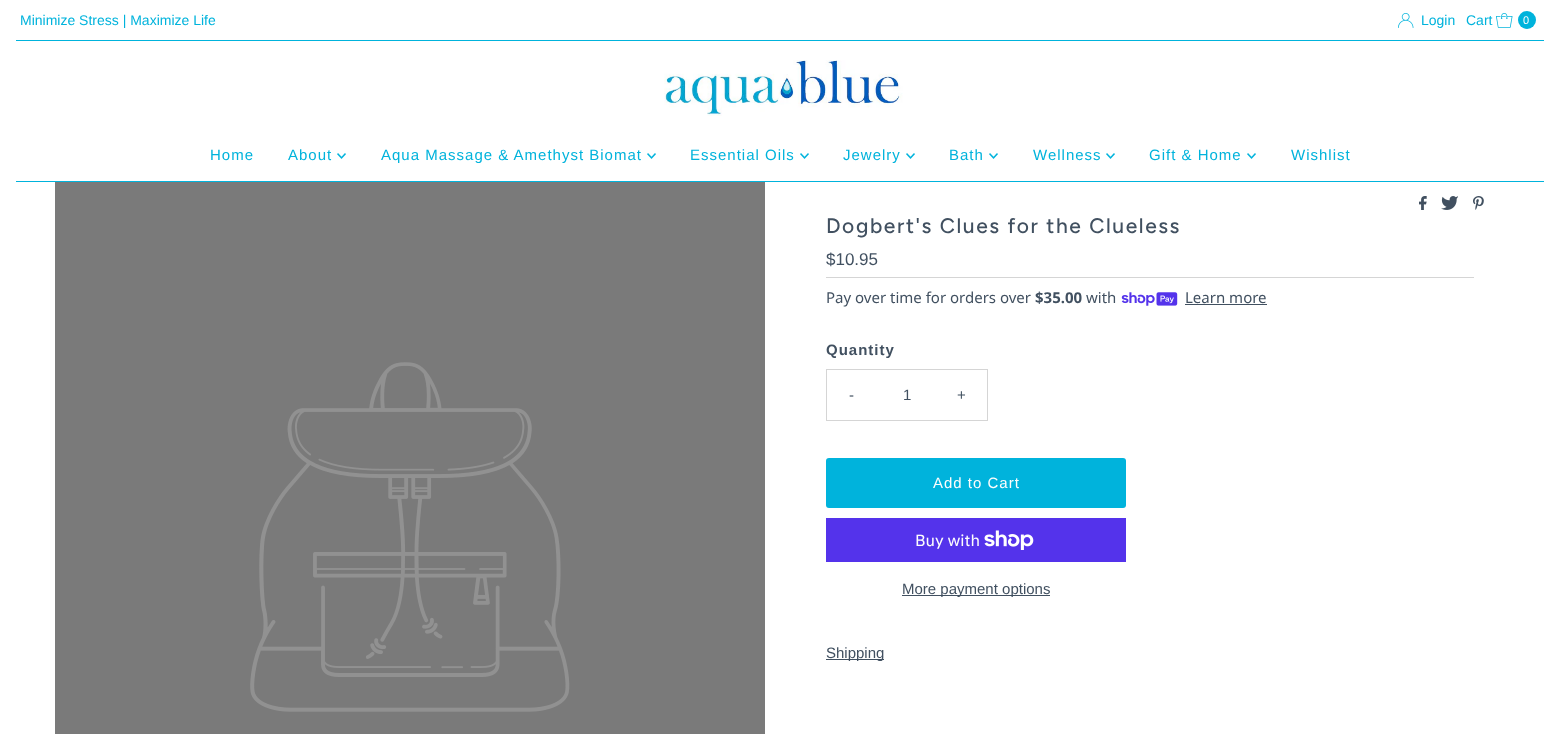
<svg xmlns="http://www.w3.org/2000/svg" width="1560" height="734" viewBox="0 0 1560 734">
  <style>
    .t1 { font: 14px Liberation Sans; fill: #00b3dc; }
    .t2 { font: 11px Liberation Sans; fill: #fdfdfd; }
    .t3 { font: 15px Liberation Sans; letter-spacing: 1px; fill: #00b3dc; }
    .t4 { font: 500 21px Figtree; letter-spacing: 1.6px; fill: #415060; }
    .t5 { font: 17px Liberation Sans; fill: #415060; }
    .t6 { font: 15px Noto Sans; fill: #415060; }
    .t7 { font: bold 15px Noto Sans; fill: #415060; }
    .t8 { font: bold 15px Liberation Sans; letter-spacing: 1px; fill: #415060; }
    .t9 { font: 15px Liberation Sans; letter-spacing: 1px; fill: #415060; }
    .t10 { font: 15px Liberation Sans; fill: #415060; }
    .t11 { font: 15px Liberation Sans; letter-spacing: 1px; fill: #fdfdfd; }
    .t12 { font: 16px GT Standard; fill: #fdfdfd; }
  </style>
  <rect width="100%" height="100%" fill="#fff"/>
  <text x="20" y="25" class="t1">Minimize Stress | Maximize Life</text>
  <image x="1398" y="13" width="16" height="15" href="images/1.png"/>
  <text x="1421" y="25" class="t1">Login</text>
  <text x="1466" y="25" class="t1">Cart</text>
  <image x="1496" y="13" width="17" height="15" href="images/2.png"/>
  <circle cx="1527" cy="20" r="9" fill="#00b3dc"/>
  <text x="1523" y="24" class="t2">0</text>
  <rect x="16" y="40" width="1528" height="1" fill="#00b3dc"/>
  <image x="664" y="60" width="239" height="56" href="images/3.png"/>
  <text x="210" y="160" class="t3">Home</text>
  <text x="288" y="160" class="t3">About</text>
  <image x="337" y="153" width="9" height="6" href="images/4.png"/>
  <text x="381" y="160" class="t3">Aqua Massage &amp; Amethyst Biomat</text>
  <image x="647" y="153" width="9" height="6" href="images/4.png"/>
  <text x="690" y="160" class="t3">Essential Oils</text>
  <image x="800" y="153" width="9" height="6" href="images/4.png"/>
  <text x="843" y="160" class="t3">Jewelry</text>
  <image x="906" y="153" width="9" height="6" href="images/4.png"/>
  <text x="949" y="160" class="t3">Bath</text>
  <image x="989" y="153" width="9" height="6" href="images/4.png"/>
  <text x="1033" y="160" class="t3">Wellness</text>
  <image x="1106" y="153" width="9" height="6" href="images/4.png"/>
  <text x="1149" y="160" class="t3">Gift &amp; Home</text>
  <image x="1247" y="153" width="9" height="6" href="images/4.png"/>
  <text x="1291" y="160" class="t3">Wishlist</text>
  <rect x="16" y="181" width="1528" height="1" fill="#00b3dc"/>
  <rect x="55" y="182" width="710" height="552" fill="#7a7a7a"/>
  <image x="250" y="362" width="320" height="350" href="images/5.png"/>
  <image x="1419" y="196" width="8" height="14" href="images/6.png"/>
  <image x="1441" y="196" width="17" height="14" href="images/7.png"/>
  <image x="1473" y="196" width="11" height="14" href="images/8.png"/>
  <text x="826" y="233" class="t4">Dogbert's Clues for the Clueless</text>
  <rect x="826" y="277" width="648" height="1" fill="#d5d5d5"/>
  <text x="826" y="265" class="t5">$10.95</text>
  <text x="826" y="303" class="t6">Pay over time for orders over</text>
  <text x="1035" y="303" class="t7">$35.00</text>
  <text x="1086" y="303" class="t6">with</text>
  <image x="1121" y="292" width="57" height="14" href="images/9.png"/>
  <text x="1185" y="303" class="t6">Learn more</text>
  <rect x="1185" y="304" width="82" height="1" fill="#415060"/>
  <text x="826" y="355" class="t8">Quantity</text>
  <rect x="826.5" y="369.5" width="161" height="51" fill="none" stroke="#d5d5d5"/>
  <text x="849" y="400" class="t9">-</text>
  <text x="903" y="400" class="t10">1</text>
  <text x="957" y="400" class="t9">+</text>
  <rect x="826" y="458" width="300" height="50" rx="3" fill="#00b3dc"/>
  <text x="933" y="488" class="t11">Add to Cart</text>
  <rect x="826" y="518" width="300" height="44" fill="#5433eb"/>
  <text x="915" y="546" class="t12">Buy with</text>
  <image x="984" y="530" width="50" height="20" href="images/10.png"/>
  <rect x="902" y="595" width="148" height="1" fill="#415060"/>
  <text x="902" y="594" class="t10">More payment options</text>
  <rect x="826" y="659" width="58" height="1" fill="#415060"/>
  <text x="826" y="658" class="t10">Shipping</text>
</svg>
